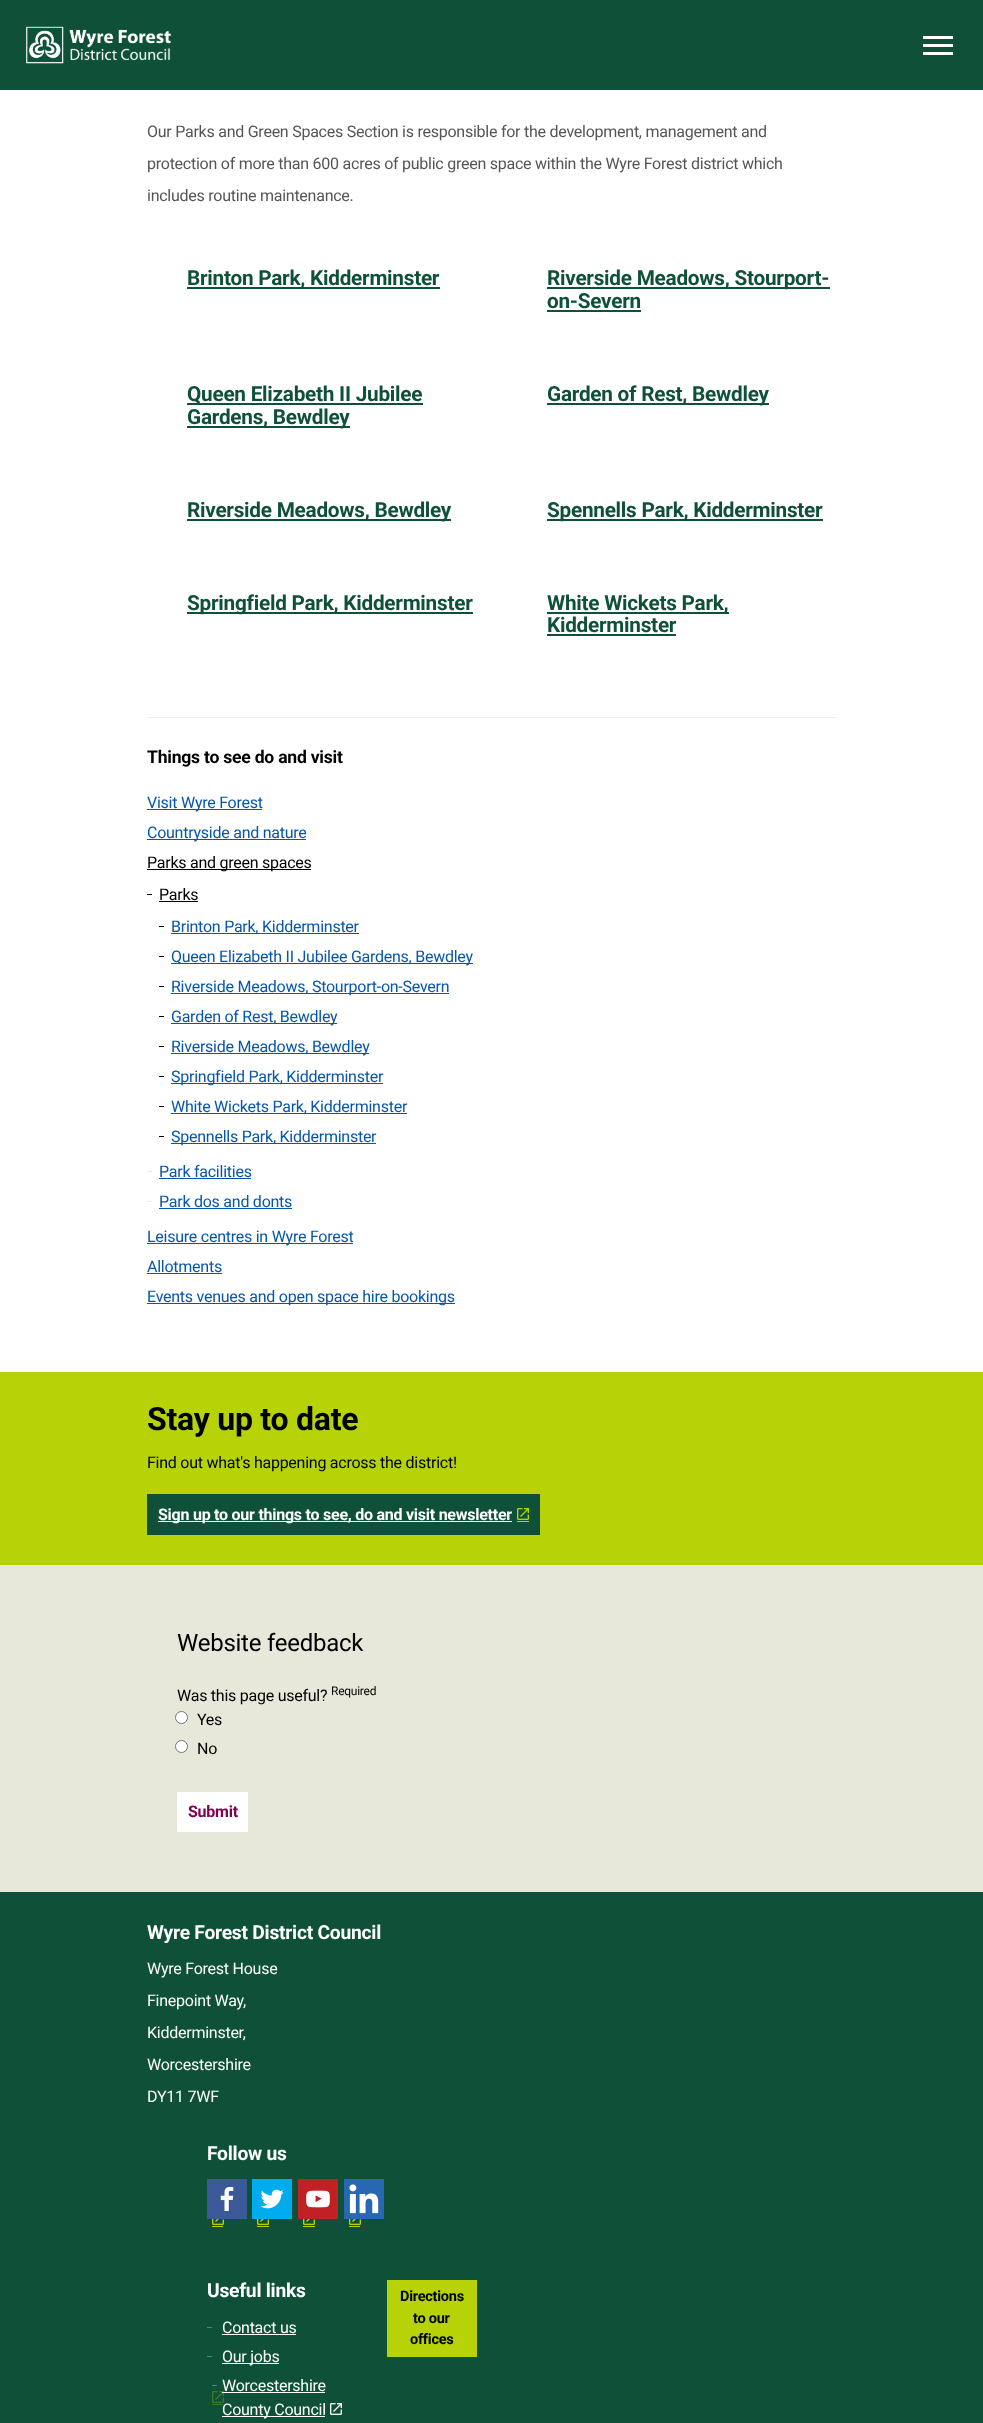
<svg xmlns="http://www.w3.org/2000/svg" width="983" height="2423" viewBox="0 0 983 2423">
  <style>
    .t1 { font: 16px Roboto; letter-spacing: -0.25px; fill: #555457; }
    .t2 { font: bold 20.75px Roboto; letter-spacing: -0.25px; fill: #0e5138; }
    .t3 { font: bold 17.6px Roboto; letter-spacing: -0.25px; fill: #000; }
    .t4 { font: 16px Roboto; letter-spacing: -0.25px; fill: #0656ac; }
    .t5 { font: 16px Roboto; letter-spacing: -0.25px; fill: #000; }
    .t6 { font: bold 32px Roboto; letter-spacing: -0.25px; fill: #000; }
    .t7 { font: bold 16px Roboto; letter-spacing: -0.25px; fill: #fff; }
    .t8 { font: 24px Roboto; letter-spacing: -0.25px; fill: #000; }
    .t9 { font: 12px Roboto; letter-spacing: -0.25px; fill: #000; }
    .t10 { font: bold 16px Roboto; letter-spacing: -0.25px; fill: #820053; }
    .t11 { font: bold 19.25px Roboto; letter-spacing: -0.25px; fill: #fff; }
    .t12 { font: 16px Roboto; letter-spacing: -0.25px; fill: #fff; }
    .t13 { font: bold 14.5px Roboto; letter-spacing: -0.25px; fill: #000; }
  </style>
  <rect width="100%" height="100%" fill="#e7e7da"/>
  <rect x="0" y="0" width="983" height="90" fill="#0e5138"/>
  <image x="26" y="26" width="145" height="38" href="images/1.png"/>
  <rect x="923" y="44" width="30" height="3" fill="#fff"/>
  <rect x="923" y="36" width="30" height="3" fill="#fff"/>
  <rect x="923" y="52" width="30" height="3" fill="#fff"/>
  <rect x="0" y="90" width="983" height="1282" fill="#fff"/>
  <text x="147" y="137" class="t1">Our Parks and Green Spaces Section is responsible for the development, management and</text>
  <text x="147" y="169" class="t1">protection of more than 600 acres of public green space within the Wyre Forest district which</text>
  <text x="147" y="201" class="t1">includes routine maintenance.</text>
  <rect x="187" y="287" width="253" height="2" fill="#0e5138"/>
  <text x="187" y="285" class="t2">Brinton Park, Kidderminster</text>
  <rect x="547" y="287" width="283" height="2" fill="#0e5138"/>
  <text x="547" y="285" class="t2">Riverside Meadows, Stourport-</text>
  <text x="547" y="308" class="t2">on-Severn</text>
  <rect x="547" y="310" width="94" height="2" fill="#0e5138"/>
  <rect x="187" y="403" width="236" height="2" fill="#0e5138"/>
  <text x="187" y="401" class="t2">Queen Elizabeth II Jubilee</text>
  <rect x="187" y="426" width="163" height="2" fill="#0e5138"/>
  <text x="187" y="424" class="t2">Gardens, Bewdley</text>
  <rect x="547" y="403" width="222" height="2" fill="#0e5138"/>
  <text x="547" y="401" class="t2">Garden of Rest, Bewdley</text>
  <rect x="187" y="519" width="264" height="2" fill="#0e5138"/>
  <text x="187" y="517" class="t2">Riverside Meadows, Bewdley</text>
  <rect x="547" y="519" width="276" height="2" fill="#0e5138"/>
  <text x="547" y="517" class="t2">Spennells Park, Kidderminster</text>
  <rect x="187" y="612" width="286" height="2" fill="#0e5138"/>
  <text x="187" y="610" class="t2">Springfield Park, Kidderminster</text>
  <rect x="547" y="612" width="182" height="2" fill="#0e5138"/>
  <text x="547" y="610" class="t2">White Wickets Park,</text>
  <text x="547" y="632" class="t2">Kidderminster</text>
  <rect x="547" y="634" width="129" height="2" fill="#0e5138"/>
  <rect x="147" y="717" width="690" height="1" fill="#ededed"/>
  <text x="147" y="763" class="t3">Things to see do and visit</text>
  <rect x="147" y="809" width="115" height="1" fill="#0656ac"/>
  <text x="147" y="808" class="t4">Visit Wyre Forest</text>
  <rect x="147" y="839" width="159" height="1" fill="#0656ac"/>
  <text x="147" y="838" class="t4">Countryside and nature</text>
  <rect x="147" y="869" width="164" height="1" fill="#000"/>
  <text x="147" y="868" class="t5">Parks and green spaces</text>
  <rect x="147" y="894" width="5" height="1" fill="#000"/>
  <text x="159" y="900" class="t5">Parks</text>
  <rect x="159" y="901" width="39" height="1" fill="#000"/>
  <rect x="159" y="926" width="5" height="1" fill="#000"/>
  <rect x="171" y="933" width="188" height="1" fill="#0656ac"/>
  <text x="171" y="932" class="t4">Brinton Park, Kidderminster</text>
  <rect x="159" y="956" width="5" height="1" fill="#000"/>
  <rect x="171" y="963" width="302" height="1" fill="#0656ac"/>
  <text x="171" y="962" class="t4">Queen Elizabeth II Jubilee Gardens, Bewdley</text>
  <rect x="159" y="986" width="5" height="1" fill="#000"/>
  <rect x="171" y="993" width="278" height="1" fill="#0656ac"/>
  <text x="171" y="992" class="t4">Riverside Meadows, Stourport-on-Severn</text>
  <rect x="159" y="1016" width="5" height="1" fill="#000"/>
  <rect x="171" y="1023" width="166" height="1" fill="#0656ac"/>
  <text x="171" y="1022" class="t4">Garden of Rest, Bewdley</text>
  <rect x="159" y="1046" width="5" height="1" fill="#000"/>
  <rect x="171" y="1053" width="198" height="1" fill="#0656ac"/>
  <text x="171" y="1052" class="t4">Riverside Meadows, Bewdley</text>
  <rect x="159" y="1076" width="5" height="1" fill="#000"/>
  <rect x="171" y="1083" width="212" height="1" fill="#0656ac"/>
  <text x="171" y="1082" class="t4">Springfield Park, Kidderminster</text>
  <rect x="159" y="1106" width="5" height="1" fill="#000"/>
  <rect x="171" y="1113" width="236" height="1" fill="#0656ac"/>
  <text x="171" y="1112" class="t4">White Wickets Park, Kidderminster</text>
  <rect x="159" y="1136" width="5" height="1" fill="#000"/>
  <rect x="171" y="1143" width="205" height="1" fill="#0656ac"/>
  <text x="171" y="1142" class="t4">Spennells Park, Kidderminster</text>
  <rect x="147" y="1171" width="5" height="1" fill="#ededed"/>
  <text x="159" y="1177" class="t4">Park facilities</text>
  <rect x="159" y="1178" width="92" height="1" fill="#0656ac"/>
  <rect x="147" y="1201" width="5" height="1" fill="#ededed"/>
  <text x="159" y="1207" class="t4">Park dos and donts</text>
  <rect x="159" y="1208" width="133" height="1" fill="#0656ac"/>
  <rect x="147" y="1243" width="206" height="1" fill="#0656ac"/>
  <text x="147" y="1242" class="t4">Leisure centres in Wyre Forest</text>
  <text x="147" y="1272" class="t4">Allotments</text>
  <rect x="147" y="1273" width="75" height="1" fill="#0656ac"/>
  <rect x="147" y="1303" width="308" height="1" fill="#0656ac"/>
  <text x="147" y="1302" class="t4">Events venues and open space hire bookings</text>
  <rect x="0" y="1372" width="983" height="193" fill="#b7d308"/>
  <text x="147" y="1430" class="t6">Stay up to date</text>
  <text x="147" y="1468" class="t5">Find out what's happening across the district!</text>
  <rect x="147" y="1494" width="393" height="41" fill="#0e5138"/>
  <rect x="158" y="1521" width="354" height="1" fill="#fff"/>
  <text x="158" y="1520" class="t7">Sign up to our things to see, do and visit newsletter</text>
  <rect x="517" y="1521" width="12" height="1" fill="#b7d308"/>
  <image x="517" y="1508" width="12" height="12" href="images/2.png"/>
  <text x="177" y="1651" class="t8">Website feedback</text>
  <text x="177" y="1701" class="t5">Was this page useful?</text>
  <text x="331" y="1695" class="t9">Required</text>
  <circle cx="181.5" cy="1717.5" r="6" fill="#fff" stroke="#767676"/>
  <text x="197" y="1725" class="t5">Yes</text>
  <circle cx="181.5" cy="1746.5" r="6" fill="#fff" stroke="#767676"/>
  <text x="197" y="1754" class="t5">No</text>
  <rect x="177" y="1792" width="71" height="40" fill="#fff"/>
  <text x="188" y="1817" class="t10">Submit</text>
  <rect x="0" y="1892" width="983" height="531" fill="#0e5138"/>
  <text x="147" y="1939" class="t11">Wyre Forest District Council</text>
  <text x="147" y="1974" class="t12">Wyre Forest House</text>
  <text x="147" y="2006" class="t12">Finepoint Way,</text>
  <text x="147" y="2038" class="t12">Kidderminster,</text>
  <text x="147" y="2070" class="t12">Worcestershire</text>
  <text x="147" y="2102" class="t12">DY11 7WF</text>
  <text x="207" y="2160" class="t11">Follow us</text>
  <image x="207" y="2179" width="40" height="40" href="images/3.png"/>
  <rect x="212" y="2226" width="11" height="1" fill="#b7d308"/>
  <image x="212" y="2219" width="12" height="6" href="images/4.png"/>
  <image x="252" y="2179" width="40" height="40" href="images/5.png"/>
  <rect x="257" y="2226" width="12" height="1" fill="#b7d308"/>
  <image x="257" y="2219" width="12" height="6" href="images/4.png"/>
  <image x="298" y="2179" width="40" height="40" href="images/6.png"/>
  <rect x="303" y="2226" width="12" height="1" fill="#b7d308"/>
  <image x="303" y="2219" width="12" height="6" href="images/4.png"/>
  <image x="344" y="2179" width="40" height="40" href="images/7.png"/>
  <rect x="349" y="2226" width="11" height="1" fill="#b7d308"/>
  <image x="349" y="2219" width="12" height="6" href="images/4.png"/>
  <text x="207" y="2297" class="t11">Useful links</text>
  <rect x="207" y="2327" width="5" height="1" fill="#568574"/>
  <text x="222" y="2333" class="t12">Contact us</text>
  <rect x="222" y="2334" width="74" height="1" fill="#fff"/>
  <rect x="207" y="2356" width="5" height="1" fill="#568574"/>
  <rect x="222" y="2363" width="57" height="1" fill="#fff"/>
  <text x="222" y="2362" class="t12">Our jobs</text>
  <rect x="212" y="2385" width="5" height="1" fill="#568574"/>
  <rect x="222" y="2416" width="103" height="1" fill="#fff"/>
  <text x="222" y="2415" class="t12">County Council</text>
  <rect x="212" y="2404" width="11" height="1" fill="#41782a"/>
  <text x="222" y="2391" class="t12">Worcestershire</text>
  <rect x="222" y="2392" width="103" height="1" fill="#fff"/>
  <image x="212" y="2391" width="12" height="12" href="images/8.png"/>
  <image x="330" y="2403" width="12" height="12" href="images/9.png"/>
  <rect x="387" y="2280" width="90" height="77" fill="#b7d308"/>
  <text x="400" y="2301" class="t13">Directions</text>
  <text x="413" y="2323" class="t13">to our</text>
  <text x="410" y="2344" class="t13">offices</text>
</svg>
